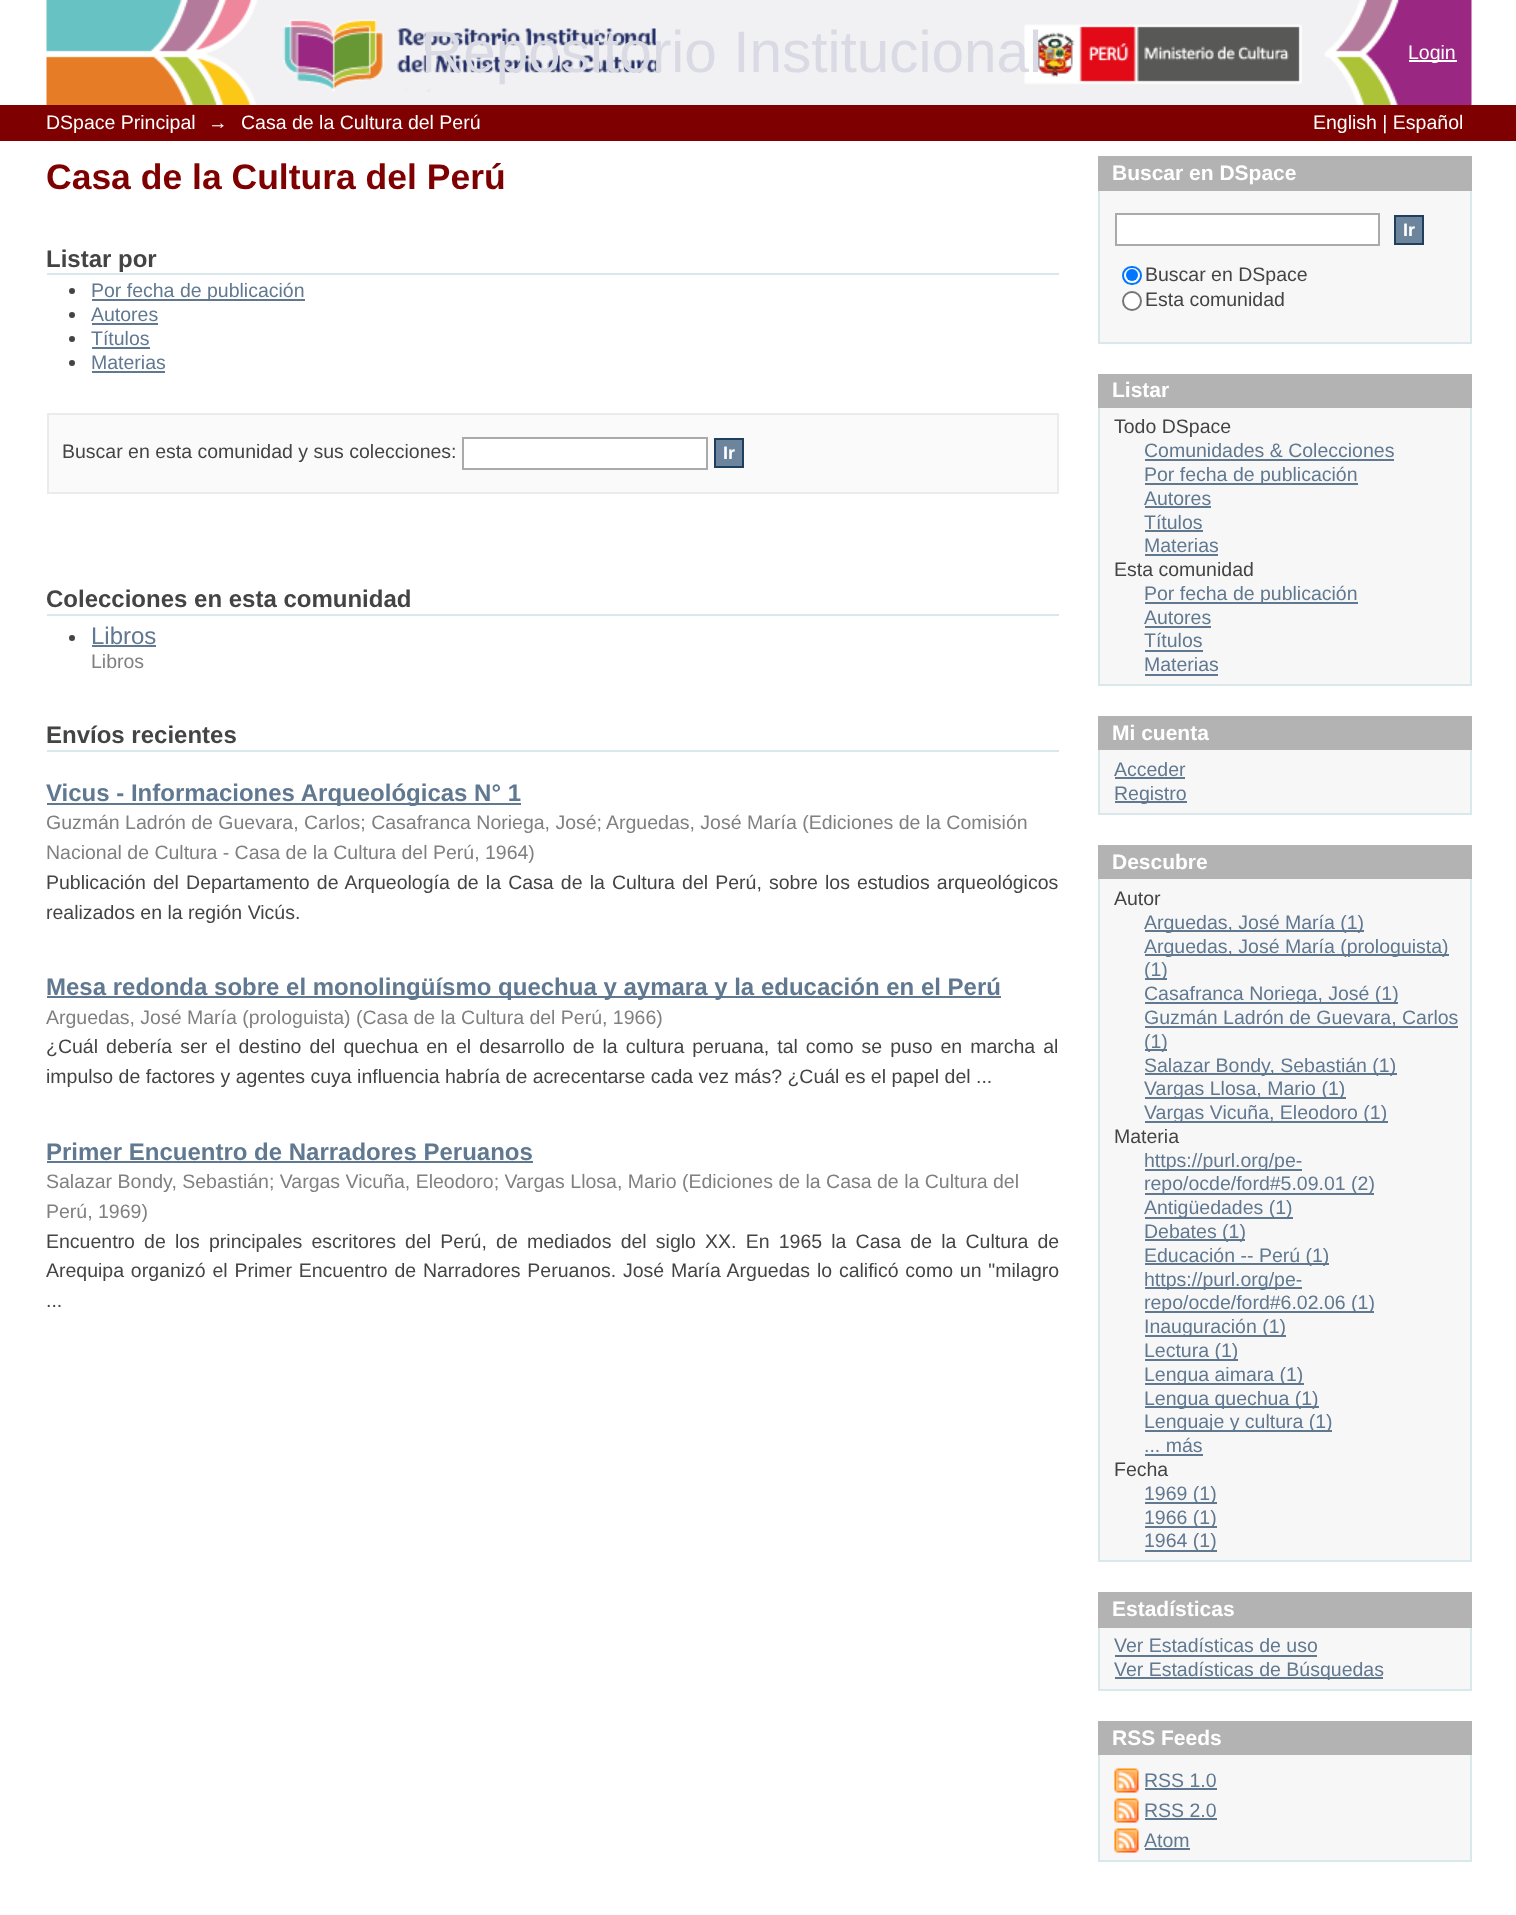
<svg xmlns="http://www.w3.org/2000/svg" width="1516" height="1915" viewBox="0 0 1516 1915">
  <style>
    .t1 { font: 58.5px Liberation Sans; fill: #d9dae3; }
    .t2 { font: 19.5px Liberation Sans; fill: #fff; }
    .t3 { font: bold 35.5px Liberation Sans; fill: #7f0000; }
    .t4 { font: bold 24px Liberation Sans; fill: #444; }
    .t5 { font: 19.5px Liberation Sans; fill: #607890; }
    .t6 { font: 19.5px Liberation Sans; fill: #444; }
    .t7 { font: bold 18px Liberation Sans; fill: #fff; }
    .t8 { font: 24px Liberation Sans; fill: #607890; }
    .t9 { font: 19.5px Liberation Sans; fill: #808080; }
    .t10 { font: bold 24px Liberation Sans; fill: #607890; }
    .t11 { font: bold 21px Liberation Sans; fill: #fff; }
  </style>
  <rect width="100%" height="100%" fill="#fff"/>
  <image x="46" y="0" width="1426" height="105" href="images/1.png"/>
  <text x="421" y="72" class="t1">Repositorio Institucional</text>
  <rect x="1409" y="60" width="48" height="2" fill="#fff"/>
  <text x="1408" y="59" class="t2">Login</text>
  <rect x="0" y="105" width="1516" height="36" fill="#7f0000"/>
  <text x="46" y="129" class="t2">DSpace Principal</text>
  <text x="208" y="129" class="t2">→</text>
  <text x="241" y="129" class="t2">Casa de la Cultura del Perú</text>
  <text x="1313" y="129" class="t2">English | Español</text>
  <text x="46" y="189" class="t3">Casa de la Cultura del Perú</text>
  <rect x="47" y="273" width="1012" height="2" fill="#d8e8eb"/>
  <text x="46" y="267" class="t4">Listar por</text>
  <circle cx="72" cy="291" r="3" fill="#444"/>
  <rect x="92" y="299" width="213" height="2" fill="#607890"/>
  <text x="91" y="297" class="t5">Por fecha de publicación</text>
  <circle cx="72" cy="315" r="3" fill="#444"/>
  <text x="91" y="321" class="t5">Autores</text>
  <rect x="92" y="323" width="66" height="2" fill="#607890"/>
  <circle cx="72" cy="339" r="3" fill="#444"/>
  <text x="91" y="345" class="t5">Títulos</text>
  <rect x="92" y="347" width="58" height="2" fill="#607890"/>
  <circle cx="72" cy="363" r="3" fill="#444"/>
  <text x="91" y="369" class="t5">Materias</text>
  <rect x="92" y="371" width="73" height="2" fill="#607890"/>
  <rect x="48" y="414" width="1010" height="79" fill="#fafafa" stroke="#ebebeb" stroke-width="2"/>
  <text x="62" y="458" class="t6">Buscar en esta comunidad y sus colecciones:</text>
  <rect x="463" y="438" width="244" height="31" fill="#fff" stroke="#aaa" stroke-width="2"/>
  <rect x="715" y="439" width="28" height="28" fill="#6d859c" stroke="#1f3f5e" stroke-width="2"/>
  <text x="723" y="459" class="t7">Ir</text>
  <rect x="47" y="614" width="1012" height="2" fill="#d8e8eb"/>
  <text x="46" y="607" class="t4">Colecciones en esta comunidad</text>
  <circle cx="72" cy="638" r="3" fill="#444"/>
  <text x="91" y="644" class="t8">Libros</text>
  <rect x="92" y="645" width="64" height="2" fill="#607890"/>
  <text x="91" y="668" class="t9">Libros</text>
  <rect x="47" y="750" width="1012" height="2" fill="#d8e8eb"/>
  <text x="46" y="743" class="t4">Envíos recientes</text>
  <rect x="47" y="803" width="474" height="2" fill="#607890"/>
  <text x="46" y="801" class="t10">Vicus - Informaciones Arqueológicas N° 1</text>
  <text x="46" y="829" class="t9">Guzmán Ladrón de Guevara, Carlos; Casafranca Noriega, José;</text>
  <text x="606" y="829" class="t9">Arguedas, José María (Ediciones de la Comisión</text>
  <text x="46" y="859" class="t9">Nacional de Cultura - Casa de la Cultura del Perú, 1964)</text>
  <text x="46" y="889" word-spacing="1.75" class="t6">Publicación del Departamento de Arqueología de la Casa de la Cultura del Perú, sobre los estudios arqueológicos</text>
  <text x="46" y="919" class="t6">realizados en la región Vicús.</text>
  <rect x="47" y="996" width="954" height="2" fill="#607890"/>
  <text x="46" y="995" class="t10">Mesa redonda sobre el monolingüísmo quechua y aymara y la educación en el Perú</text>
  <text x="46" y="1024" class="t9">Arguedas, José María (prologuista) (Casa de la Cultura del Perú, 1966)</text>
  <text x="46" y="1053" word-spacing="2.6" class="t6">¿Cuál debería ser el destino del quechua en el desarrollo de la cultura peruana, tal como se puso en marcha al</text>
  <text x="46" y="1083" class="t6">impulso de factores y agentes cuya influencia habría de acrecentarse cada vez más? ¿Cuál es el papel del ...</text>
  <text x="46" y="1160" class="t10">Primer Encuentro de Narradores Peruanos</text>
  <rect x="47" y="1161" width="486" height="2" fill="#607890"/>
  <text x="46" y="1188" class="t9">Salazar Bondy, Sebastián; Vargas Vicuña, Eleodoro; Vargas Llosa, Mario (Ediciones de la Casa de la Cultura del</text>
  <text x="46" y="1218" class="t9">Perú, 1969)</text>
  <text x="46" y="1248" word-spacing="3.75" class="t6">Encuentro de los principales escritores del Perú, de mediados del siglo XX. En 1965 la Casa de la Cultura de</text>
  <text x="46" y="1277" word-spacing="1.4" class="t6">Arequipa organizó el Primer Encuentro de Narradores Peruanos. José María Arguedas lo calificó como un "milagro</text>
  <text x="46" y="1307" class="t6">...</text>
  <rect x="1098" y="156" width="374" height="35" fill="#b3b3b3"/>
  <text x="1112" y="180" class="t11">Buscar en DSpace</text>
  <rect x="1100" y="191" width="370" height="151" fill="#f7f7f7"/>
  <rect x="1470" y="191" width="2" height="153" fill="#d8e8eb"/>
  <rect x="1098" y="342" width="374" height="2" fill="#d8e8eb"/>
  <rect x="1098" y="191" width="2" height="153" fill="#d8e8eb"/>
  <rect x="1116" y="214" width="263" height="31" fill="#fff" stroke="#aaa" stroke-width="2"/>
  <rect x="1395" y="216" width="28" height="28" fill="#6d859c" stroke="#1f3f5e" stroke-width="2"/>
  <text x="1403" y="236" class="t7">Ir</text>
  <rect x="1123" y="267" width="18" height="17" rx="8.5" fill="#fff" stroke="#0075ff" stroke-width="2"/>
  <circle cx="1132" cy="275" r="6" fill="#0075ff"/>
  <text x="1145" y="281" class="t6">Buscar en DSpace</text>
  <circle cx="1132" cy="301" r="9" fill="#fff" stroke="#767676" stroke-width="2"/>
  <text x="1145" y="306" class="t6">Esta comunidad</text>
  <rect x="1098" y="374" width="374" height="34" fill="#b3b3b3"/>
  <text x="1112" y="397" class="t11">Listar</text>
  <rect x="1100" y="408" width="370" height="276" fill="#f7f7f7"/>
  <rect x="1470" y="408" width="2" height="278" fill="#d8e8eb"/>
  <rect x="1098" y="684" width="374" height="2" fill="#d8e8eb"/>
  <rect x="1098" y="408" width="2" height="278" fill="#d8e8eb"/>
  <text x="1114" y="433" class="t6">Todo DSpace</text>
  <text x="1144" y="457" class="t5">Comunidades &amp; Colecciones</text>
  <rect x="1145" y="459" width="249" height="2" fill="#607890"/>
  <rect x="1145" y="483" width="213" height="2" fill="#607890"/>
  <text x="1144" y="481" class="t5">Por fecha de publicación</text>
  <text x="1144" y="505" class="t5">Autores</text>
  <rect x="1145" y="506" width="66" height="2" fill="#607890"/>
  <text x="1144" y="529" class="t5">Títulos</text>
  <rect x="1145" y="530" width="58" height="2" fill="#607890"/>
  <text x="1144" y="552" class="t5">Materias</text>
  <rect x="1145" y="554" width="73" height="2" fill="#607890"/>
  <text x="1114" y="576" class="t6">Esta comunidad</text>
  <rect x="1145" y="602" width="213" height="2" fill="#607890"/>
  <text x="1144" y="600" class="t5">Por fecha de publicación</text>
  <text x="1144" y="624" class="t5">Autores</text>
  <rect x="1145" y="626" width="66" height="2" fill="#607890"/>
  <text x="1144" y="647" class="t5">Títulos</text>
  <rect x="1145" y="650" width="58" height="2" fill="#607890"/>
  <text x="1144" y="671" class="t5">Materias</text>
  <rect x="1145" y="674" width="73" height="2" fill="#607890"/>
  <rect x="1098" y="716" width="374" height="34" fill="#b3b3b3"/>
  <text x="1112" y="740" class="t11">Mi cuenta</text>
  <rect x="1100" y="750" width="370" height="63" fill="#f7f7f7"/>
  <rect x="1470" y="750" width="2" height="65" fill="#d8e8eb"/>
  <rect x="1098" y="813" width="374" height="2" fill="#d8e8eb"/>
  <rect x="1098" y="750" width="2" height="65" fill="#d8e8eb"/>
  <text x="1114" y="776" class="t5">Acceder</text>
  <rect x="1115" y="777" width="70" height="2" fill="#607890"/>
  <rect x="1115" y="801" width="72" height="2" fill="#607890"/>
  <text x="1114" y="800" class="t5">Registro</text>
  <rect x="1098" y="845" width="374" height="34" fill="#b3b3b3"/>
  <text x="1112" y="869" class="t11">Descubre</text>
  <rect x="1100" y="879" width="370" height="681" fill="#f7f7f7"/>
  <rect x="1470" y="879" width="2" height="683" fill="#d8e8eb"/>
  <rect x="1098" y="1560" width="374" height="2" fill="#d8e8eb"/>
  <rect x="1098" y="879" width="2" height="683" fill="#d8e8eb"/>
  <text x="1114" y="905" class="t6">Autor</text>
  <rect x="1145" y="930" width="219" height="2" fill="#607890"/>
  <text x="1144" y="929" class="t5">Arguedas, José María (1)</text>
  <rect x="1145" y="954" width="304" height="2" fill="#607890"/>
  <text x="1144" y="953" class="t5">Arguedas, José María (prologuista)</text>
  <rect x="1145" y="978" width="22" height="2" fill="#607890"/>
  <text x="1144" y="976" class="t5">(1)</text>
  <rect x="1145" y="1002" width="253" height="2" fill="#607890"/>
  <text x="1144" y="1000" class="t5">Casafranca Noriega, José (1)</text>
  <rect x="1145" y="1026" width="313" height="2" fill="#607890"/>
  <text x="1144" y="1024" class="t5">Guzmán Ladrón de Guevara, Carlos</text>
  <rect x="1145" y="1049" width="22" height="2" fill="#607890"/>
  <text x="1144" y="1048" class="t5">(1)</text>
  <rect x="1145" y="1073" width="252" height="2" fill="#607890"/>
  <text x="1144" y="1072" class="t5">Salazar Bondy, Sebastián (1)</text>
  <rect x="1145" y="1097" width="201" height="2" fill="#607890"/>
  <text x="1144" y="1095" class="t5">Vargas Llosa, Mario (1)</text>
  <rect x="1145" y="1121" width="243" height="2" fill="#607890"/>
  <text x="1144" y="1119" class="t5">Vargas Vicuña, Eleodoro (1)</text>
  <text x="1114" y="1143" class="t6">Materia</text>
  <rect x="1145" y="1169" width="157" height="2" fill="#607890"/>
  <text x="1144" y="1167" class="t5">https://purl.org/pe-</text>
  <rect x="1145" y="1193" width="229" height="2" fill="#607890"/>
  <text x="1144" y="1190" class="t5">repo/ocde/ford#5.09.01 (2)</text>
  <rect x="1145" y="1217" width="148" height="2" fill="#607890"/>
  <text x="1144" y="1214" class="t5">Antigüedades (1)</text>
  <rect x="1145" y="1239" width="100" height="2" fill="#607890"/>
  <text x="1144" y="1238" class="t5">Debates (1)</text>
  <rect x="1145" y="1263" width="184" height="2" fill="#607890"/>
  <text x="1144" y="1262" class="t5">Educación -- Perú (1)</text>
  <rect x="1145" y="1287" width="157" height="2" fill="#607890"/>
  <text x="1144" y="1286" class="t5">https://purl.org/pe-</text>
  <rect x="1145" y="1311" width="229" height="2" fill="#607890"/>
  <text x="1144" y="1309" class="t5">repo/ocde/ford#6.02.06 (1)</text>
  <rect x="1145" y="1335" width="141" height="2" fill="#607890"/>
  <text x="1144" y="1333" class="t5">Inauguración (1)</text>
  <rect x="1145" y="1359" width="93" height="2" fill="#607890"/>
  <text x="1144" y="1357" class="t5">Lectura (1)</text>
  <rect x="1145" y="1383" width="159" height="2" fill="#607890"/>
  <text x="1144" y="1381" class="t5">Lengua aimara (1)</text>
  <rect x="1145" y="1406" width="174" height="2" fill="#607890"/>
  <text x="1144" y="1405" class="t5">Lengua quechua (1)</text>
  <rect x="1145" y="1430" width="187" height="2" fill="#607890"/>
  <text x="1144" y="1428" class="t5">Lenguaje y cultura (1)</text>
  <text x="1144" y="1452" class="t5">... más</text>
  <rect x="1145" y="1454" width="58" height="2" fill="#607890"/>
  <text x="1114" y="1476" class="t6">Fecha</text>
  <rect x="1145" y="1502" width="72" height="2" fill="#607890"/>
  <text x="1144" y="1500" class="t5">1969 (1)</text>
  <rect x="1145" y="1526" width="72" height="2" fill="#607890"/>
  <text x="1144" y="1524" class="t5">1966 (1)</text>
  <rect x="1145" y="1550" width="72" height="2" fill="#607890"/>
  <text x="1144" y="1547" class="t5">1964 (1)</text>
  <rect x="1098" y="1592" width="374" height="36" fill="#b3b3b3"/>
  <text x="1112" y="1616" class="t11">Estadísticas</text>
  <rect x="1100" y="1628" width="370" height="61" fill="#f7f7f7"/>
  <rect x="1470" y="1628" width="2" height="63" fill="#d8e8eb"/>
  <rect x="1098" y="1689" width="374" height="2" fill="#d8e8eb"/>
  <rect x="1098" y="1628" width="2" height="63" fill="#d8e8eb"/>
  <text x="1114" y="1652" class="t5">Ver Estadísticas de uso</text>
  <rect x="1115" y="1655" width="202" height="2" fill="#607890"/>
  <rect x="1115" y="1677" width="268" height="2" fill="#607890"/>
  <text x="1114" y="1676" class="t5">Ver Estadísticas de Búsquedas</text>
  <rect x="1098" y="1721" width="374" height="34" fill="#b3b3b3"/>
  <text x="1112" y="1745" class="t11">RSS Feeds</text>
  <rect x="1100" y="1755" width="370" height="105" fill="#f7f7f7"/>
  <rect x="1470" y="1755" width="2" height="107" fill="#d8e8eb"/>
  <rect x="1098" y="1860" width="374" height="2" fill="#d8e8eb"/>
  <rect x="1098" y="1755" width="2" height="107" fill="#d8e8eb"/>
  <image x="1114" y="1768" width="25" height="25" href="images/2.png"/>
  <text x="1144" y="1787" class="t5">RSS 1.0</text>
  <rect x="1145" y="1788" width="72" height="2" fill="#607890"/>
  <image x="1114" y="1798" width="25" height="25" href="images/2.png"/>
  <text x="1144" y="1817" class="t5">RSS 2.0</text>
  <rect x="1145" y="1818" width="72" height="2" fill="#607890"/>
  <image x="1114" y="1828" width="25" height="25" href="images/2.png"/>
  <text x="1144" y="1847" class="t5">Atom</text>
  <rect x="1145" y="1848" width="45" height="2" fill="#607890"/>
</svg>
